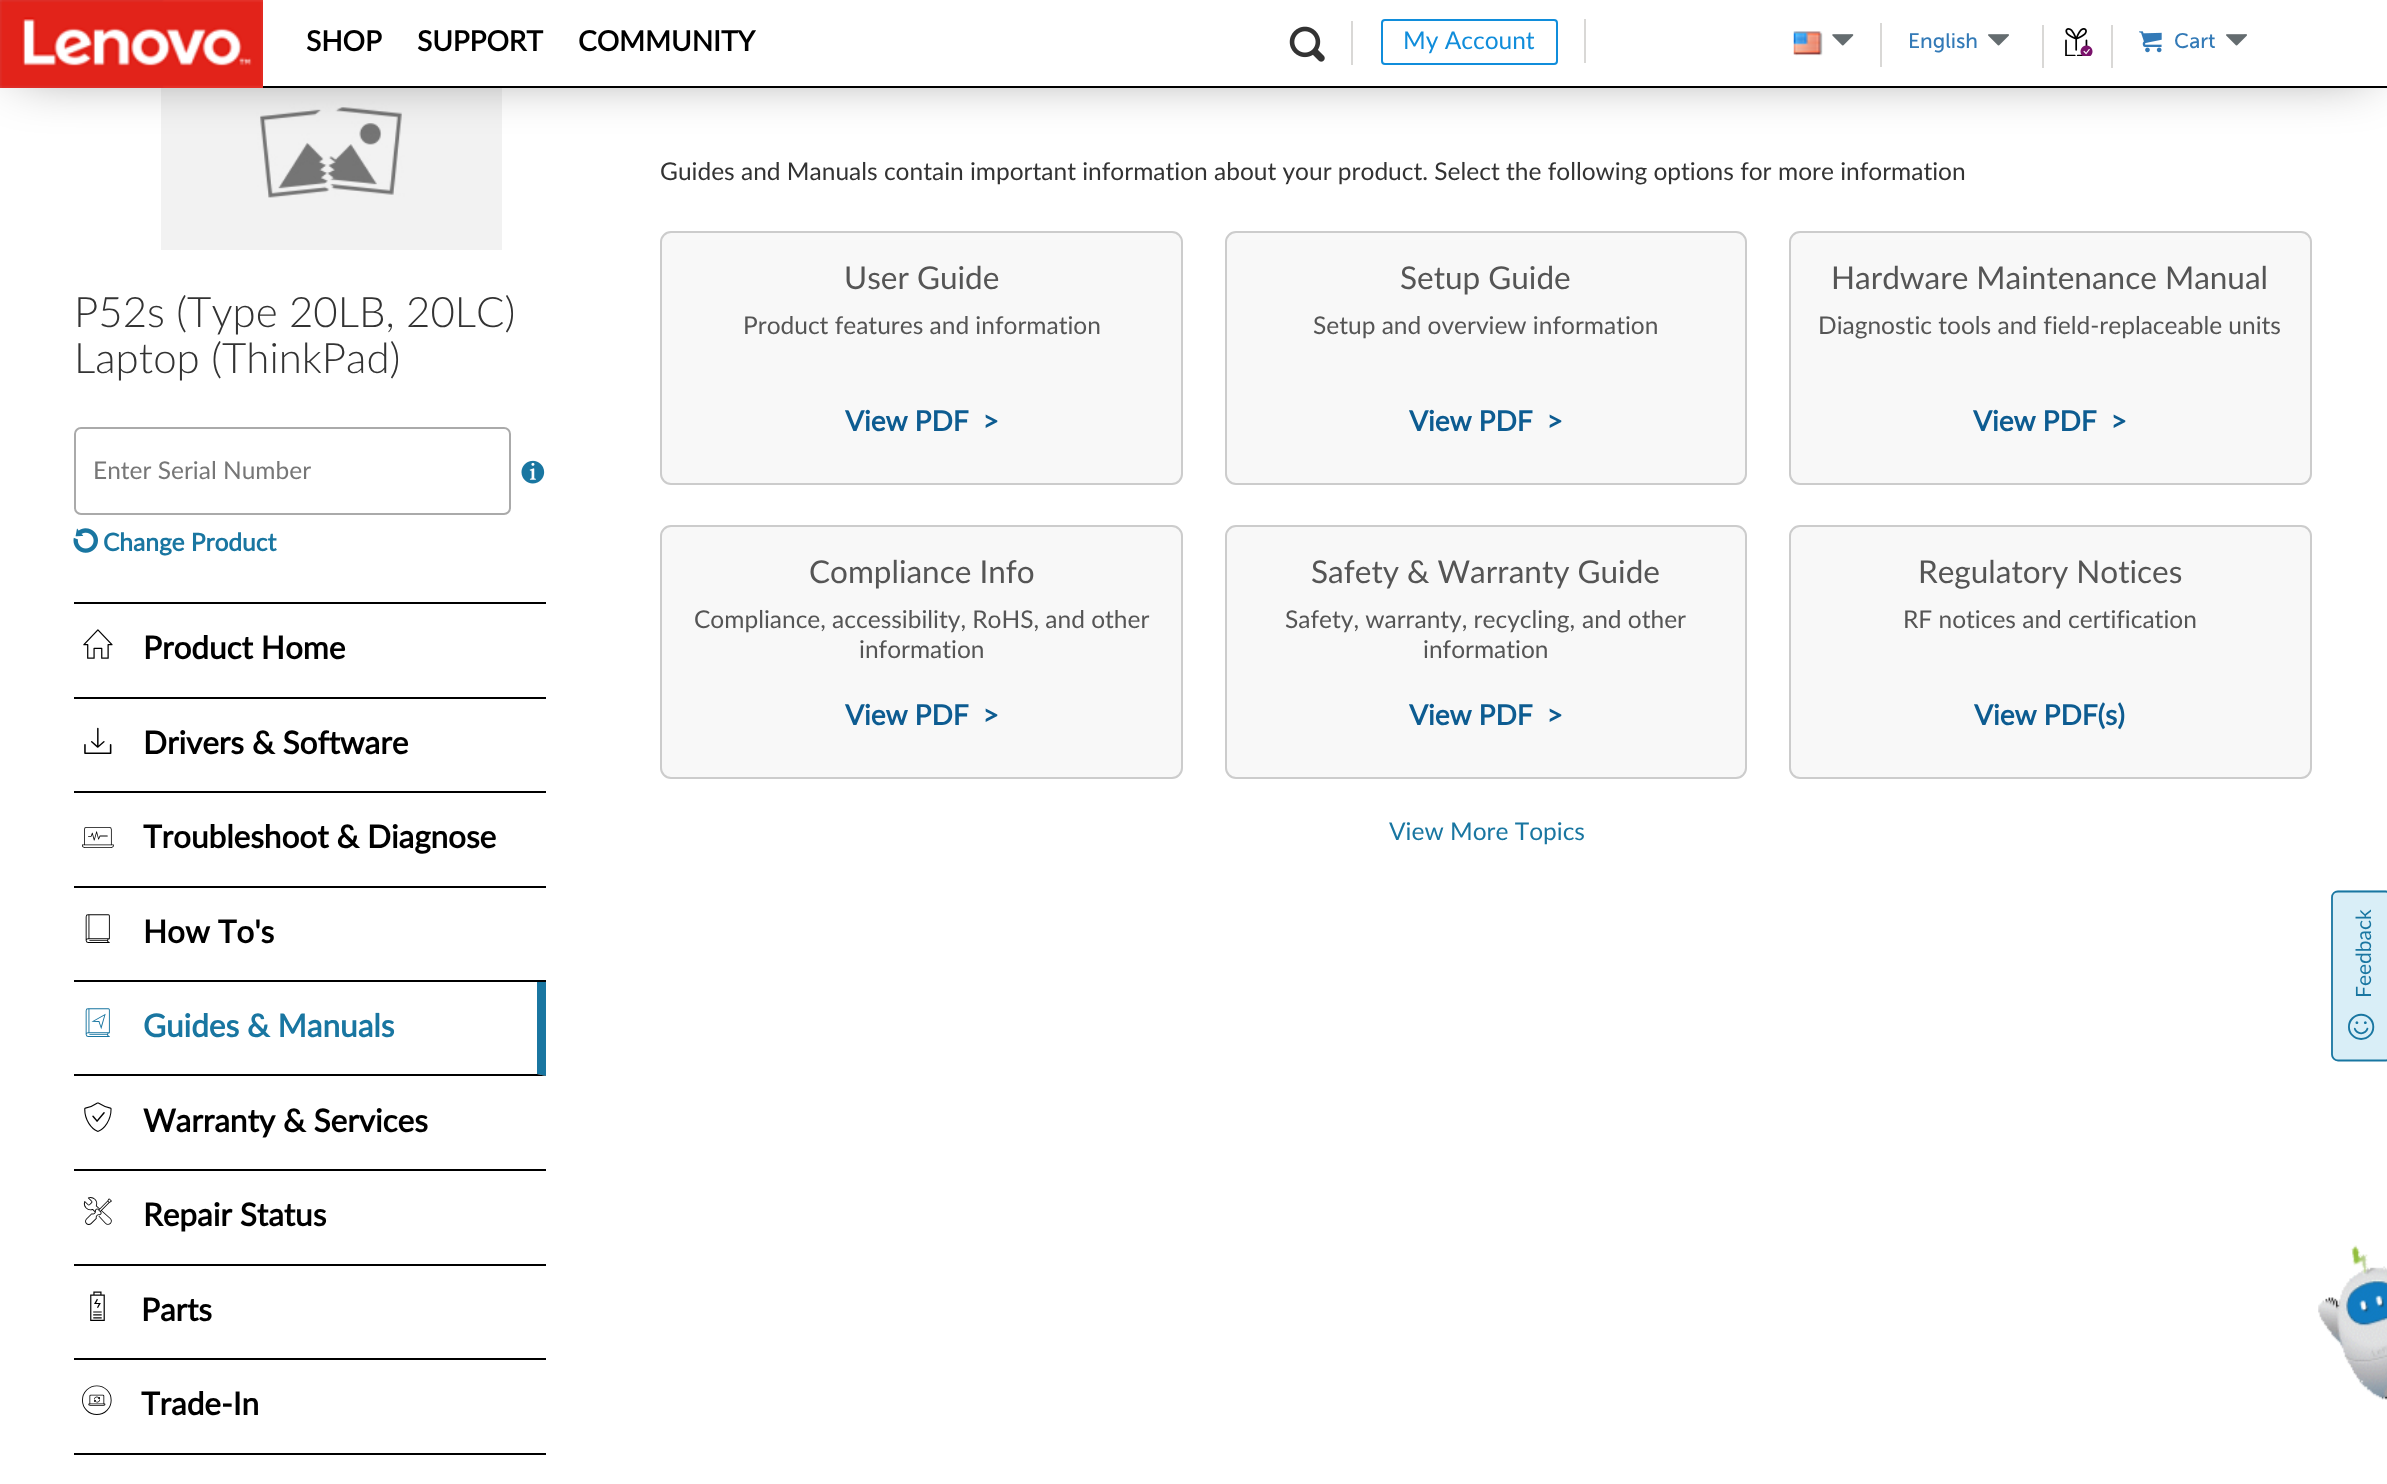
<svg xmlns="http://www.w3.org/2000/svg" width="2387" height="1484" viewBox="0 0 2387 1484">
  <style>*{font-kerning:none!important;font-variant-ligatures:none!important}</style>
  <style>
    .t1 { font: bold 28px Lato; fill: #000; }
    .t2 { font: 24.5px Lato; fill: #108ddb; }
    .t3 { font: 21px Museo Sans; fill: #337ab7; }
    .t4 { font: 300 42px Lato; fill: #333; }
    .t5 { font: 24.5px Lato; fill: #777; }
    .t6 { font: bold 24.5px Lato; fill: #1976a1; }
    .t7 { font: 31.5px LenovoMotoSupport; fill: #000; }
    .t8 { font: bold 31.5px Lato; fill: #000; }
    .t9 { font: 31.5px LenovoMotoSupport; fill: #1976a1; }
    .t10 { font: bold 31.5px Lato; fill: #1976a1; }
    .t11 { font: 24.5px Lato; fill: #333; }
    .t12 { font: 31.5px Lato; fill: #555; }
    .t13 { font: 24.5px Lato; fill: #555; }
    .t14 { font: bold 28px Lato; fill: #0d5c91; }
    .t15 { font: 24.5px Lato; fill: #1976a1; }
    .t16 { font: 21px Lato; fill: #1976a1; }
    .t17 { font: 28px LenovoMotoSupport; fill: #1976a1; }
  </style>
  <rect width="100%" height="100%" fill="#fff"/>
  <image x="161" y="88" width="341" height="162" href="images/8.png"/>
  <rect x="18" y="18" width="2352" height="52" fill="#00000080" filter="blur(28px)"/>
  <rect x="263" y="0" width="2124" height="86" fill="#fff"/>
  <rect x="263" y="86" width="2124" height="2" fill="#000"/>
  <image x="0" y="0" width="263" height="88" href="images/1.png"/>
  <text x="306" y="51" class="t1">SHOP</text>
  <text x="417" y="51" class="t1">SUPPORT</text>
  <text x="578" y="51" class="t1">COMMUNITY</text>
  <rect x="1351" y="21" width="2" height="44" fill="#d9d8d6"/>
  <image x="1289" y="26" width="36" height="36" href="images/2.png"/>
  <rect x="1584" y="19" width="2" height="44" fill="#d9d8d6"/>
  <rect x="1382" y="20" width="175" height="44" rx="3" fill="none" stroke="#108ddb" stroke-width="2"/>
  <text x="1403" y="49" class="t2">My Account</text>
  <rect x="1880" y="23" width="2" height="44" fill="#d9d8d6"/>
  <image x="1793" y="31" width="30" height="25" href="images/3.png"/>
  <image x="1832" y="34" width="22" height="12" href="images/4.png"/>
  <text x="1908" y="48" class="t3">English</text>
  <image x="1988" y="34" width="21" height="12" href="images/5.png"/>
  <rect x="2111" y="25" width="2" height="43" fill="#d9d8d6"/>
  <rect x="2042" y="25" width="2" height="43" fill="#d9d8d6"/>
  <image x="2065" y="28" width="28" height="28" href="images/6.png"/>
  <image x="2139" y="31" width="23" height="22" href="images/7.png"/>
  <text x="2174" y="48" class="t3">Cart</text>
  <image x="2226" y="34" width="21" height="12" href="images/5.png"/>
  <text x="74" y="327" class="t4">P52s (Type 20LB, 20LC)</text>
  <text x="74" y="373" class="t4">Laptop (ThinkPad)</text>
  <rect x="75" y="428" width="435" height="86" rx="6" fill="none" stroke="#aaa" stroke-width="2"/>
  <text x="93" y="479" class="t5">Enter Serial Number</text>
  <image x="521" y="460" width="24" height="24" href="images/9.png"/>
  <image x="73" y="528" width="25" height="25" href="images/10.png"/>
  <text x="103" y="551" class="t6">Change Product</text>
  <rect x="74" y="602" width="472" height="2" fill="#000"/>
  <rect x="74" y="697" width="472" height="2" fill="#000"/>
  <text x="82" y="659" class="t7">󡊐</text>
  <text x="143" y="659" class="t8">Product Home</text>
  <rect x="74" y="791" width="472" height="2" fill="#000"/>
  <text x="82" y="754" class="t7">󡊑</text>
  <text x="143" y="754" class="t8">Drivers &amp; Software</text>
  <rect x="74" y="886" width="472" height="2" fill="#000"/>
  <text x="82" y="848" class="t7">󡊒</text>
  <text x="143" y="848" class="t8">Troubleshoot &amp; Diagnose</text>
  <rect x="74" y="980" width="472" height="2" fill="#000"/>
  <text x="82" y="943" class="t7">󡊓</text>
  <text x="143" y="943" class="t8">How To's</text>
  <path d="M546 982V1076L537 1074V982Z" fill="#1976a1"/>
  <path d="M546 1076H74V1074H537Z" fill="#000"/>
  <text x="82" y="1037" class="t9">󡐉</text>
  <text x="143" y="1037" class="t10">Guides &amp; Manuals</text>
  <rect x="74" y="1169" width="472" height="2" fill="#000"/>
  <text x="82" y="1132" class="t7">󡊔</text>
  <text x="143" y="1132" class="t8">Warranty &amp; Services</text>
  <rect x="74" y="1264" width="472" height="2" fill="#000"/>
  <text x="82" y="1226" class="t7">󡊕</text>
  <text x="143" y="1226" class="t8">Repair Status</text>
  <rect x="74" y="1358" width="472" height="2" fill="#000"/>
  <text x="82" y="1321" class="t7">󡎄</text>
  <text x="141" y="1321" class="t8">Parts</text>
  <rect x="74" y="1453" width="472" height="2" fill="#000"/>
  <text x="82" y="1415" class="t7">󡐥</text>
  <text x="141" y="1415" class="t8">Trade-In</text>
  <text x="660" y="180" class="t11">Guides and Manuals contain important information about your product. Select the following options for</text>
  <text x="1778" y="180" class="t11">more information</text>
  <rect x="661" y="232" width="521" height="252" rx="10" fill="#f8f8f8" stroke="#ccc" stroke-width="2"/>
  <text x="844" y="289" class="t12">User Guide</text>
  <text x="743" y="334" class="t13">Product features and information</text>
  <text x="845" y="431" class="t14">View PDF &gt;</text>
  <rect x="1226" y="232" width="520" height="252" rx="10" fill="#f8f8f8" stroke="#ccc" stroke-width="2"/>
  <text x="1400" y="289" class="t12">Setup Guide</text>
  <text x="1313" y="334" class="t13">Setup and overview information</text>
  <text x="1409" y="431" class="t14">View PDF &gt;</text>
  <rect x="1790" y="232" width="521" height="252" rx="10" fill="#f8f8f8" stroke="#ccc" stroke-width="2"/>
  <text x="1831" y="289" class="t12">Hardware Maintenance Manual</text>
  <text x="1818" y="334" class="t13">Diagnostic tools and field-replaceable units</text>
  <text x="1973" y="431" class="t14">View PDF &gt;</text>
  <rect x="661" y="526" width="521" height="252" rx="10" fill="#f8f8f8" stroke="#ccc" stroke-width="2"/>
  <text x="809" y="583" class="t12">Compliance Info</text>
  <text x="694" y="628" class="t13">Compliance, accessibility, RoHS, and other</text>
  <text x="859" y="658" class="t13">information</text>
  <text x="845" y="725" class="t14">View PDF &gt;</text>
  <rect x="1226" y="526" width="520" height="252" rx="10" fill="#f8f8f8" stroke="#ccc" stroke-width="2"/>
  <text x="1311" y="583" class="t12">Safety &amp; Warranty Guide</text>
  <text x="1285" y="628" class="t13">Safety, warranty, recycling,</text>
  <text x="1582" y="628" class="t13">and other</text>
  <text x="1423" y="658" class="t13">information</text>
  <text x="1409" y="725" class="t14">View PDF &gt;</text>
  <rect x="1790" y="526" width="521" height="252" rx="10" fill="#f8f8f8" stroke="#ccc" stroke-width="2"/>
  <text x="1918" y="583" class="t12">Regulatory Notices</text>
  <text x="1903" y="628" class="t13">RF notices and certification</text>
  <text x="1974" y="725" class="t14">View PDF(s)</text>
  <text x="1389" y="840" class="t15">View More Topics</text>
  <path d="M2331 1054V897C2331 894 2334 890 2338 890H2385C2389 890 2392 894 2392 897V1054C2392 1058 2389 1061 2385 1061H2338C2334 1061 2331 1058 2331 1054Z" fill="#d9eef7"/>
  <path d="M2332 1054.5V897.5C2332 894 2334.5 891.5 2338 891.5H2385.5C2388.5 891.5 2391.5 894 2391.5 897.5V1054.5C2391.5 1057.5 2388.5 1060.5 2385.5 1060.5H2338C2334.5 1060.5 2332 1057.5 2332 1054.5Z" fill="none" stroke="#1976a1" stroke-width="1.8"/>
  <text x="2371" y="998" transform="rotate(-90 2371 998)" class="t16">Feedback</text>
  <text x="2348" y="1040" class="t17">󡉵</text>
  <image x="2318" y="1245" width="69" height="155" href="images/11.png"/>
</svg>
